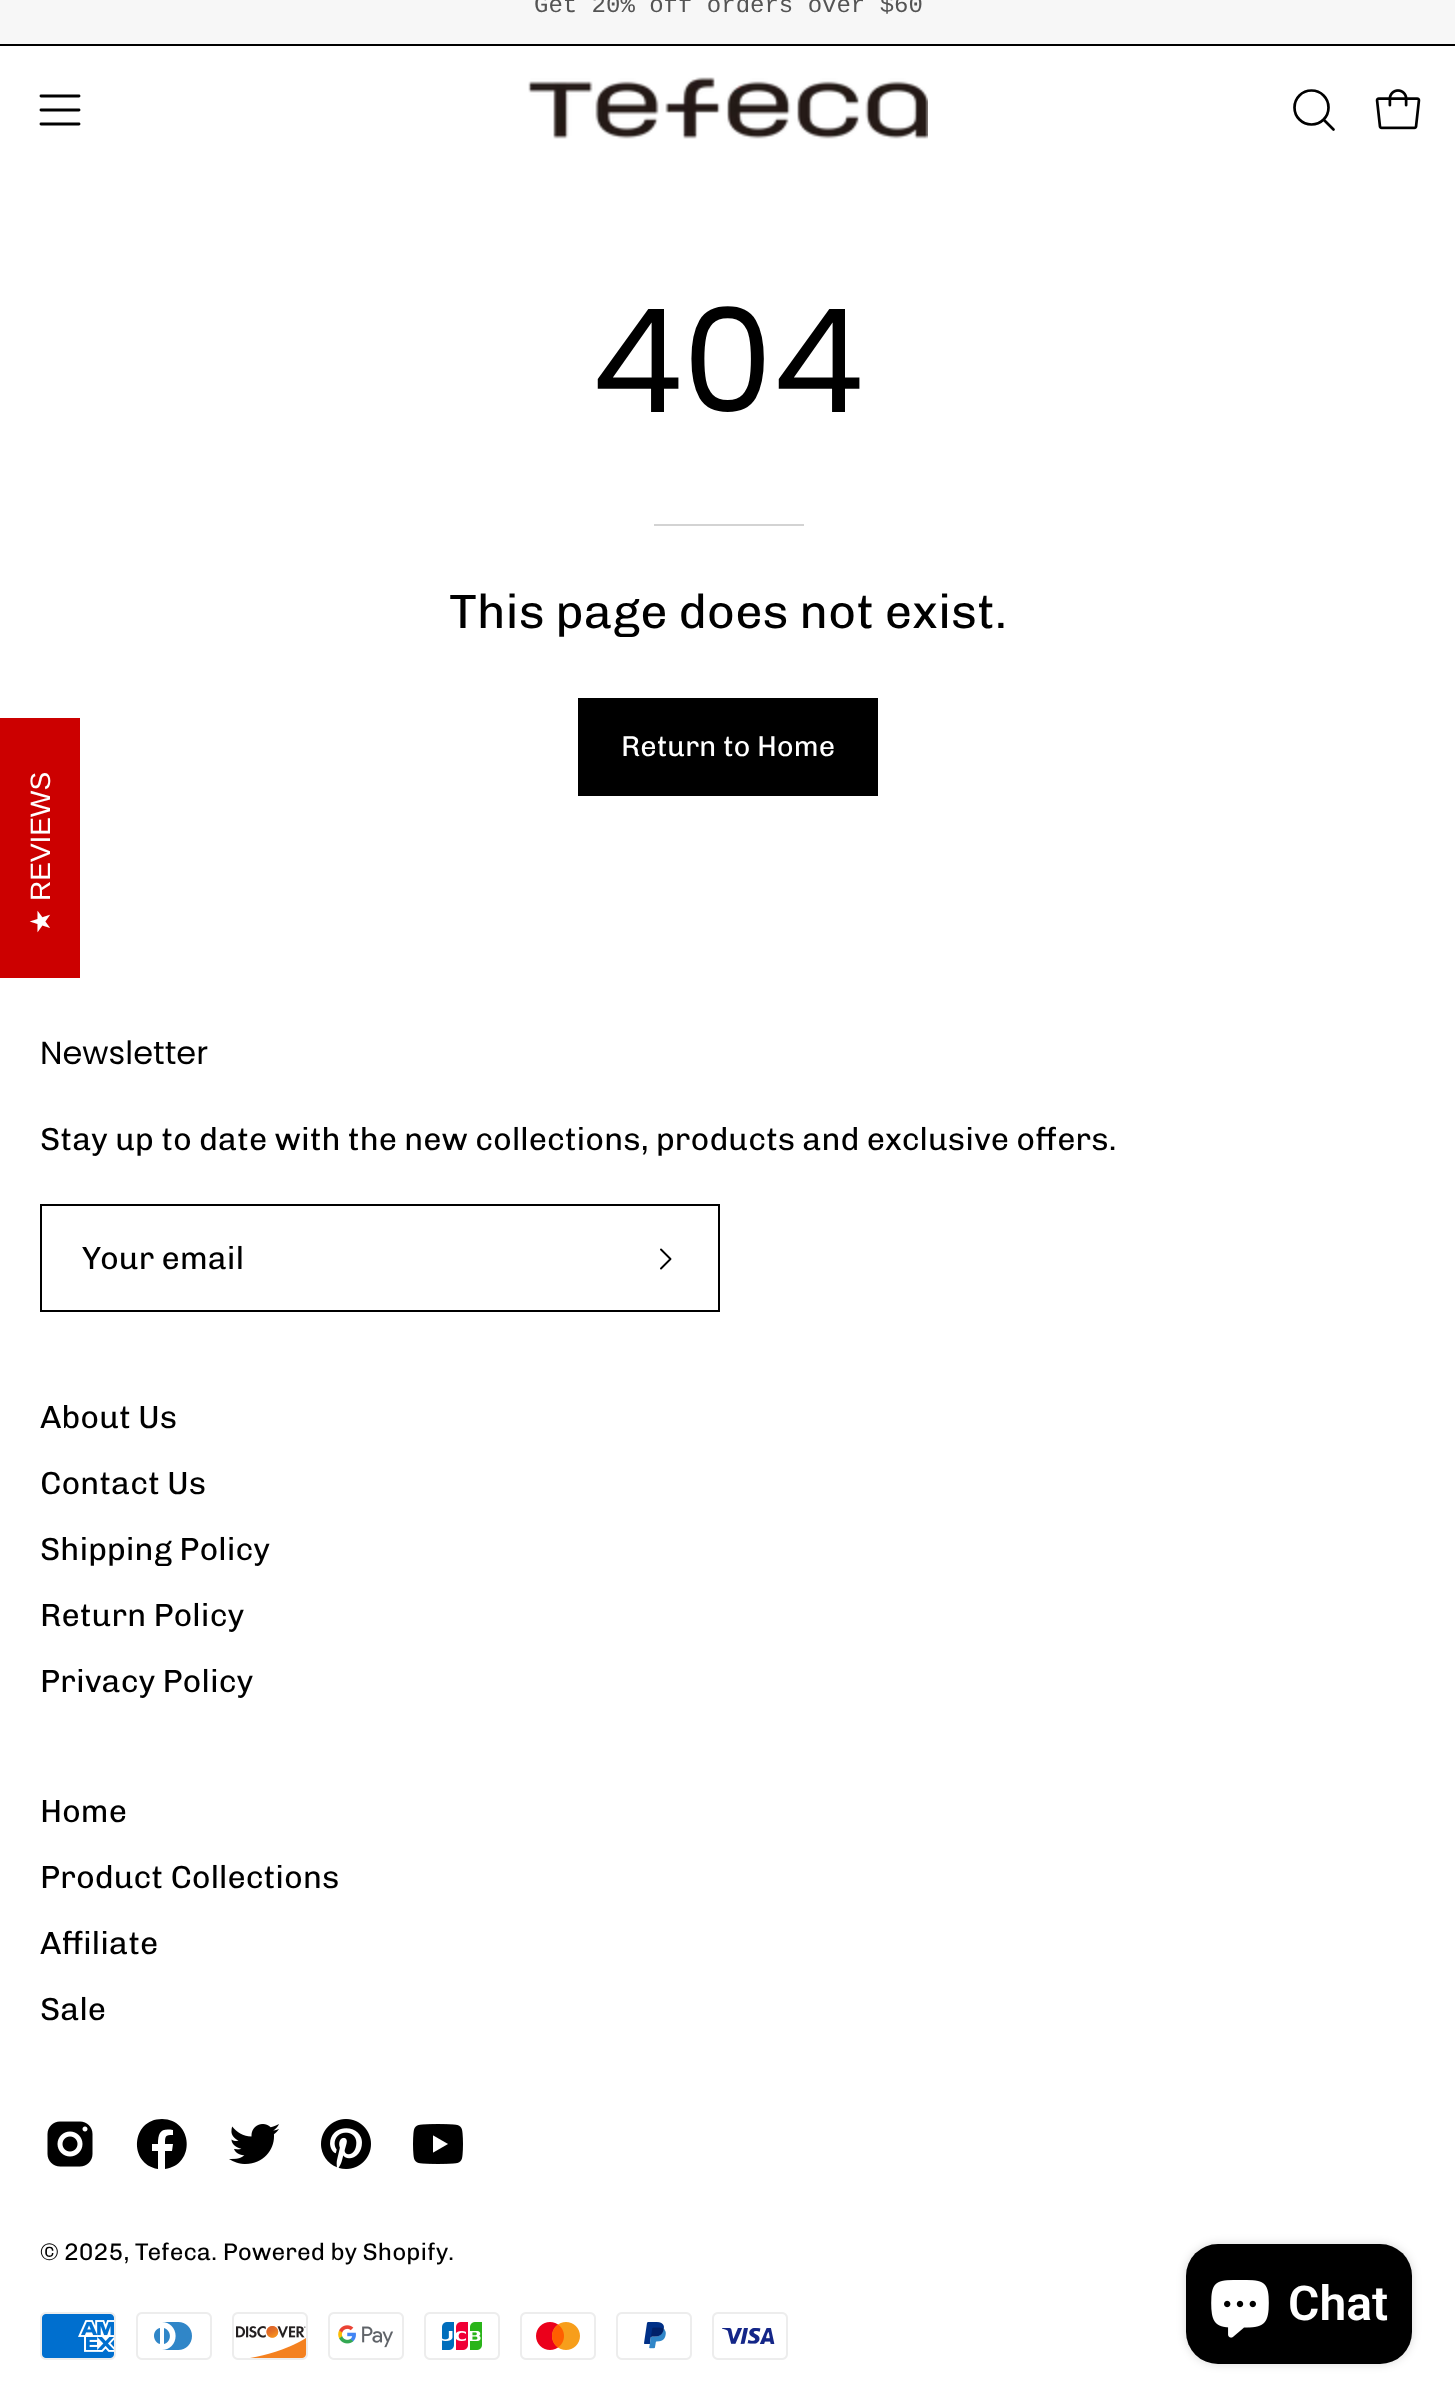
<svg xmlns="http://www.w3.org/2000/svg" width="1455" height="2405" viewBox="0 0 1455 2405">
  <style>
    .t1 { font: 24px Liberation Mono; fill: #545454; }
    .t2 { font: 144px Poppins; fill: #000; }
    .t3 { font: 48px Chivo; fill: #000; }
    .t4 { font: 28.75px Chivo; fill: #fff; }
    .t5 { font: 28px Liberation Sans; fill: #fff; }
    .t6 { font: 28px DejaVu Sans; fill: #fff; }
    .t7 { font: 32px Poppins; fill: #000; }
    .t8 { font: 32px Chivo; fill: #000; }
    .t9 { font: 24px Chivo; fill: #000; }
    .t10 { font: 600 48px Roboto; fill: #fff; }
  </style>
  <rect width="100%" height="100%" fill="#fff"/>
  <rect x="0" y="0" width="1455" height="44" fill="#f7f7f7"/>
  <rect x="0" y="44" width="1455" height="2" fill="#000"/>
  <text x="534" y="12" class="t1">Get 20% off orders over $60</text>
  <path d="M41 110H79M41 96H79M41 124H79" fill="none" stroke="#000" stroke-width="2.9" stroke-linecap="round" stroke-linejoin="round"/>
  <image x="528" y="77" width="400" height="62" href="images/1.png"/>
  <path d="M1311.5 124.5C1321 124.5 1328.5 117 1328.5 107.5C1328.5 98 1321 90.5 1311.5 90.5C1302 90.5 1294.5 98 1294.5 107.5C1294.5 117 1302 124.5 1311.5 124.5ZM1323.5 119.5L1333.5 129.5" fill="none" stroke="#000" stroke-width="2.7" stroke-linecap="round" stroke-linejoin="round"/>
  <image x="1375" y="89" width="46" height="41" href="images/2.png"/>
  <text x="592" y="412" class="t2">404</text>
  <rect x="654" y="524" width="150" height="2" fill="#d3d3d3"/>
  <text x="449" y="628" class="t3">This page does not exist.</text>
  <rect x="578" y="698" width="300" height="98" fill="#000"/>
  <text x="621" y="756" class="t4">Return to Home</text>
  <rect x="0" y="718" width="80" height="260" fill="#c00"/>
  <text x="50" y="901" transform="rotate(-90 50 901)" class="t5">REVIEWS</text>
  <text x="50" y="934" transform="rotate(-90 50 934)" class="t6">★</text>
  <text x="40" y="1064" class="t7">Newsletter</text>
  <text x="40" y="1150" class="t8">Stay up to date with the new collections, products and exclusive offers.</text>
  <rect x="40" y="1204" width="680" height="2" fill="#000"/>
  <rect x="40" y="1310" width="572" height="2" fill="#000"/>
  <rect x="40" y="1204" width="2" height="108" fill="#000"/>
  <text x="82" y="1269" class="t8">Your email</text>
  <rect x="718" y="1204" width="2" height="108" fill="#000"/>
  <rect x="612" y="1310" width="108" height="2" fill="#000"/>
  <path d="M661 1249.5L670.5 1259L661 1268.5" fill="none" stroke="#000" stroke-width="1.9" stroke-linecap="round" stroke-linejoin="round"/>
  <text x="40" y="1428" class="t8">About Us</text>
  <text x="40" y="1494" class="t8">Contact Us</text>
  <text x="40" y="1560" class="t8">Shipping Policy</text>
  <text x="40" y="1626" class="t8">Return Policy</text>
  <text x="40" y="1692" class="t8">Privacy Policy</text>
  <text x="40" y="1822" class="t8">Home</text>
  <text x="40" y="1888" class="t8">Product Collections</text>
  <text x="40" y="1954" class="t8">Affiliate</text>
  <text x="40" y="2020" class="t8">Sale</text>
  <image x="47" y="2121" width="46" height="46" href="images/3.png"/>
  <path d="M162 2119C131 2119 128 2164 158 2169V2151H152V2144H158C158 2132 161 2128 173 2130V2135C165 2135 165 2136 165 2144H173L172 2151H165V2169C196 2165 193 2119 162 2119Z" fill="#000"/>
  <image x="229" y="2124" width="50" height="40" href="images/4.png"/>
  <image x="321" y="2119" width="50" height="50" href="images/5.png"/>
  <image x="413" y="2124" width="50" height="40" href="images/6.png"/>
  <text x="40" y="2260" class="t9">© 2025, Tefeca. Powered by Shopify</text>
  <text x="448" y="2260" class="t9">.</text>
  <image x="40" y="2312" width="76" height="48" href="images/7.png"/>
  <image x="136" y="2312" width="76" height="48" href="images/8.png"/>
  <image x="232" y="2312" width="76" height="48" href="images/9.png"/>
  <image x="328" y="2312" width="76" height="48" href="images/10.png"/>
  <image x="424" y="2312" width="76" height="48" href="images/11.png"/>
  <image x="520" y="2312" width="76" height="48" href="images/12.png"/>
  <image x="616" y="2312" width="76" height="48" href="images/13.png"/>
  <image x="712" y="2312" width="76" height="48" href="images/14.png"/>
  <rect x="1186" y="2244" width="226" height="120" rx="32" fill="#00000026" filter="blur(5px)"/>
  <rect x="1186" y="2244" width="226" height="120" rx="32" fill="#000"/>
  <image x="1211" y="2280" width="58" height="58" href="images/15.png"/>
  <text x="1288" y="2320" class="t10">Chat</text>
</svg>
